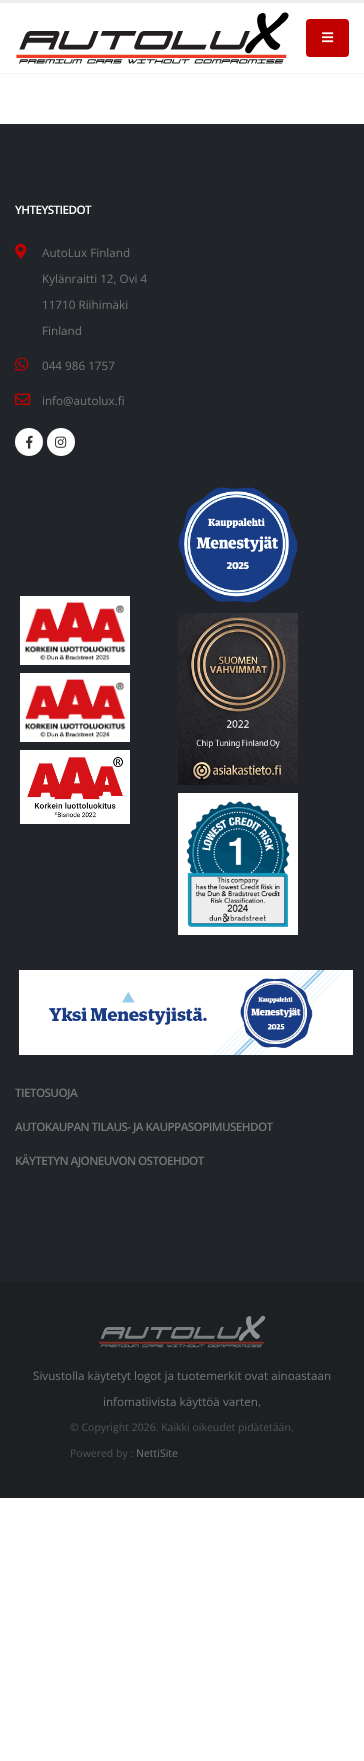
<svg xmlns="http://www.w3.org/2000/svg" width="364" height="1761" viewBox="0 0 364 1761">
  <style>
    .t1 { font: 600 11.7px Open Sans; letter-spacing: -0.6px; fill: #fff; }
    .t2 { font: 11.7px Open Sans; fill: #777; }
    .t3 { font: 600 11.7px Open Sans; letter-spacing: -0.6px; fill: #777; }
    .t4 { font: 10.5px Open Sans; fill: #555; }
    .t5 { font: 10.5px Open Sans; fill: #777; }
  </style>
  <rect width="100%" height="100%" fill="#fff"/>
  <rect x="0" y="0" width="364" height="3" fill="#ededed"/>
  <rect x="0" y="73" width="364" height="1" fill="#f5f5f5"/>
  <image x="16" y="12" width="273" height="52" href="images/1.png"/>
  <rect x="306" y="19" width="43" height="38" rx="4" fill="#c10000"/>
  <image x="322" y="32" width="12" height="11" href="images/2.png"/>
  <rect x="0" y="124" width="364" height="1157" fill="#212529"/>
  <text x="15" y="214" class="t1">YHTEYSTIEDOT</text>
  <image x="15" y="243" width="12" height="16" href="images/3.png"/>
  <text x="42" y="257" class="t2">AutoLux Finland</text>
  <text x="42" y="283" class="t2">Kylänraitti 12, Ovi 4</text>
  <text x="42" y="309" class="t2">11710 Riihimäki</text>
  <text x="42" y="335" class="t2">Finland</text>
  <image x="15" y="357" width="14" height="14" href="images/4.png"/>
  <text x="42" y="370" class="t2">044 986 1757</text>
  <image x="15" y="393" width="16" height="12" href="images/5.png"/>
  <text x="42" y="405" class="t2">info@autolux.fi</text>
  <circle cx="29" cy="442" r="14" fill="#fff"/>
  <image x="26" y="435" width="7" height="14" href="images/6.png"/>
  <circle cx="61" cy="442" r="14" fill="#fff"/>
  <image x="55" y="436" width="12" height="12" href="images/7.png"/>
  <image x="20" y="596" width="110" height="69" href="images/8.png"/>
  <image x="20" y="673" width="110" height="69" href="images/9.png"/>
  <image x="20" y="750" width="110" height="74" href="images/10.png"/>
  <image x="178" y="487" width="120" height="116" href="images/11.png"/>
  <image x="178" y="613" width="120" height="172" href="images/12.png"/>
  <image x="178" y="793" width="120" height="142" href="images/13.png"/>
  <image x="19" y="970" width="334" height="85" href="images/14.png"/>
  <text x="15" y="1097" class="t3">TIETOSUOJA</text>
  <text x="15" y="1131" class="t3">AUTOKAUPAN TILAUS- JA KAUPPASOPIMUSEHDOT</text>
  <text x="15" y="1165" class="t3">KÄYTETYN AJONEUVON OSTOEHDOT</text>
  <rect x="0" y="1281" width="364" height="217" fill="#1c2023"/>
  <image x="98" y="1315" width="168" height="33" href="images/15.png"/>
  <text x="33" y="1380" class="t2">Sivustolla käytetyt logot ja tuotemerkit ovat ainoastaan</text>
  <text x="103" y="1406" class="t2">infomatiivista käyttöä varten.</text>
  <text x="70" y="1431" class="t4">© Copyright 2026. Kaikki oikeudet pidätetään.</text>
  <text x="70" y="1457" class="t4">Powered by :</text>
  <text x="136" y="1457" class="t5">NettiSite</text>
</svg>
